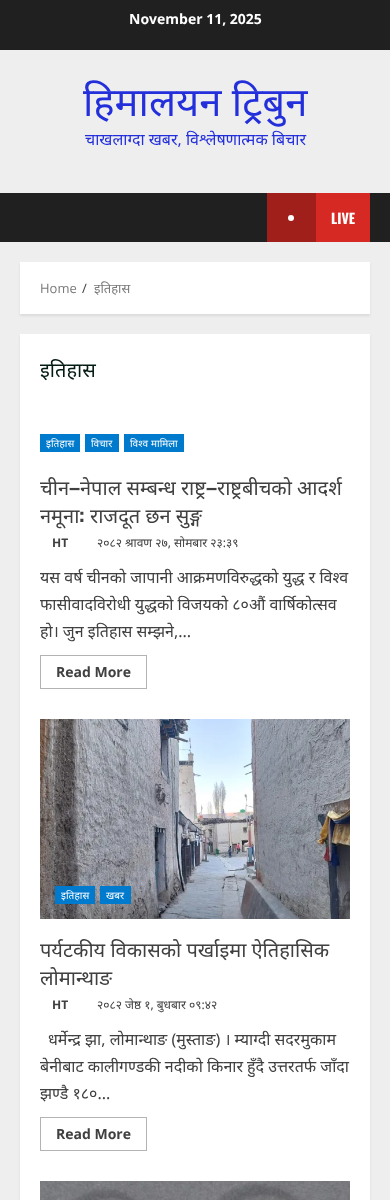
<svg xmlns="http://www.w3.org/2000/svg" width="390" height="1200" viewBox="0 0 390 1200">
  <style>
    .t1 { font: bold 14px Open Sans; fill: #fff; }
    .t2 { font: 40px Noto Sans; fill: #232fdb; }
    .t3 { font: 16px Noto Sans; fill: #232fdb; }
    .t4 { font: bold 14px Oswald; fill: #fff; }
    .t5 { font: 13px Open Sans; fill: #797979; }
    .t6 { font: 13px Open Sans; fill: #404040; }
    .t7 { font: 13px Noto Sans; fill: #797979; }
    .t8 { font: 20px Noto Sans; fill: #031b11; }
    .t9 { font: 10px Noto Sans; letter-spacing: 0.1px; fill: #fff; }
    .t10 { font: 20px Noto Sans; fill: #404040; }
    .t11 { font: bold 20px Oswald; fill: #404040; }
    .t12 { font: bold 12px Open Sans; fill: #404040; }
    .t13 { font: 12px Noto Sans; fill: #404040; }
    .t14 { font: 16px Noto Sans; fill: #404040; }
    .t15 { font: bold 14px Open Sans; fill: #404040; }
  </style>
  <defs>
    <clipPath id="clip1"><rect x="40" y="457" width="310" height="232"/></clipPath>
    <clipPath id="clip2"><rect x="40" y="919" width="310" height="232"/></clipPath>
  </defs>
  <rect width="100%" height="100%" fill="#eee"/>
  <rect x="0" y="0" width="390" height="50" fill="#202020"/>
  <text x="129" y="24" class="t1">November 11, 2025</text>
  <text x="83" y="116" class="t2">हिमालयन ट्रिबुन</text>
  <text x="85" y="145" class="t3">चाखलाग्दा खबर, विश्लेषणात्मक बिचार</text>
  <rect x="0" y="193" width="390" height="49" fill="#202020"/>
  <rect x="316" y="193" width="54" height="49" fill="#d72924"/>
  <rect x="267" y="193" width="49" height="49" fill="#a11f1b"/>
  <circle cx="291" cy="218" r="3" fill="#fff"/>
  <text x="331" y="224" class="t4">LIVE</text>
  <rect x="20" y="264" width="350" height="52" fill="#00000014" filter="blur(1px)"/>
  <rect x="20" y="262" width="350" height="52" fill="#fff"/>
  <text x="40" y="293" class="t5">Home</text>
  <text x="82" y="293" class="t6">/</text>
  <text x="94" y="293" class="t7">इतिहास</text>
  <rect x="20" y="336" width="350" height="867" fill="#00000014" filter="blur(1px)"/>
  <rect x="20" y="334" width="350" height="866" fill="#fff"/>
  <text x="40" y="377" class="t8">इतिहास</text>
  <rect x="40" y="434" width="40" height="18" fill="#007acc"/>
  <text x="46" y="447" class="t9">इतिहास</text>
  <rect x="85" y="434" width="34" height="18" fill="#007acc"/>
  <text x="91" y="447" class="t9">विचार</text>
  <rect x="124" y="434" width="60" height="18" fill="#007acc"/>
  <text x="130" y="447" class="t9">विश्व मामिला</text>
  <g clip-path="url(#clip1)">
    <text x="40" y="495" class="t10">चीन</text>
  </g>
  <text x="69" y="495" class="t11">–</text>
  <text x="80" y="495" class="t10">नेपाल सम्बन्ध राष्ट्र</text>
  <text x="217" y="495" class="t10">राष्ट्रबीचको आदर्श</text>
  <text x="206" y="495" class="t11">–</text>
  <text x="40" y="523" class="t10">नमूना</text>
  <text x="79" y="523" class="t11">:</text>
  <text x="90" y="523" class="t10">राजदूत छन सुङ्ग</text>
  <text x="52" y="547" class="t12">HT</text>
  <text x="97" y="547" class="t13">२०८२ श्रावण २७, सोमबार २३:३९</text>
  <text x="40" y="583" class="t14">यस वर्ष चीनको जापानी आक्रमणविरुद्धको युद्ध र विश्व</text>
  <text x="40" y="610" class="t14">फासीवादविरोधी युद्धको विजयको ८०औं वार्षिकोत्सव</text>
  <g clip-path="url(#clip1)">
    <text x="40" y="637" class="t14">हो। जुन इतिहास सम्झने,...</text>
  </g>
  <rect x="40.5" y="655.5" width="106" height="33" fill="none" stroke="#b3b3b3"/>
  <text x="56" y="677" class="t15">Read More</text>
  <image x="40" y="719" width="310" height="200" href="images/1.png"/>
  <rect x="55" y="886" width="40" height="18" fill="#007acc"/>
  <text x="61" y="899" class="t9">इतिहास</text>
  <rect x="100" y="886" width="31" height="18" fill="#007acc"/>
  <text x="106" y="899" class="t9">खबर</text>
  <text x="40" y="957" class="t10">पर्यटकीय विकासको पर्खाइमा ऐतिहासिक</text>
  <g clip-path="url(#clip2)">
    <text x="40" y="985" class="t10">लोमान्थाङ</text>
  </g>
  <text x="52" y="1009" class="t12">HT</text>
  <text x="97" y="1009" class="t13">२०८२ जेष्ठ १, बुधबार ०९:४२</text>
  <text x="48" y="1045" class="t14">धर्मेन्द्र झा, लोमान्थाङ (मुस्ताङ) । म्याग्दी सदरमुकाम</text>
  <g clip-path="url(#clip2)">
    <text x="40" y="1072" class="t14">बेनीबाट कालीगण्डकी नदीको किनार हुँदै उत्तरतर्फ जाँदा</text>
  </g>
  <text x="40" y="1099" class="t14">झण्डै १८०...</text>
  <rect x="40.5" y="1117.5" width="106" height="33" fill="none" stroke="#b3b3b3"/>
  <text x="56" y="1139" class="t15">Read More</text>
  <image x="40" y="1181" width="310" height="19" href="images/2.png"/>
</svg>
